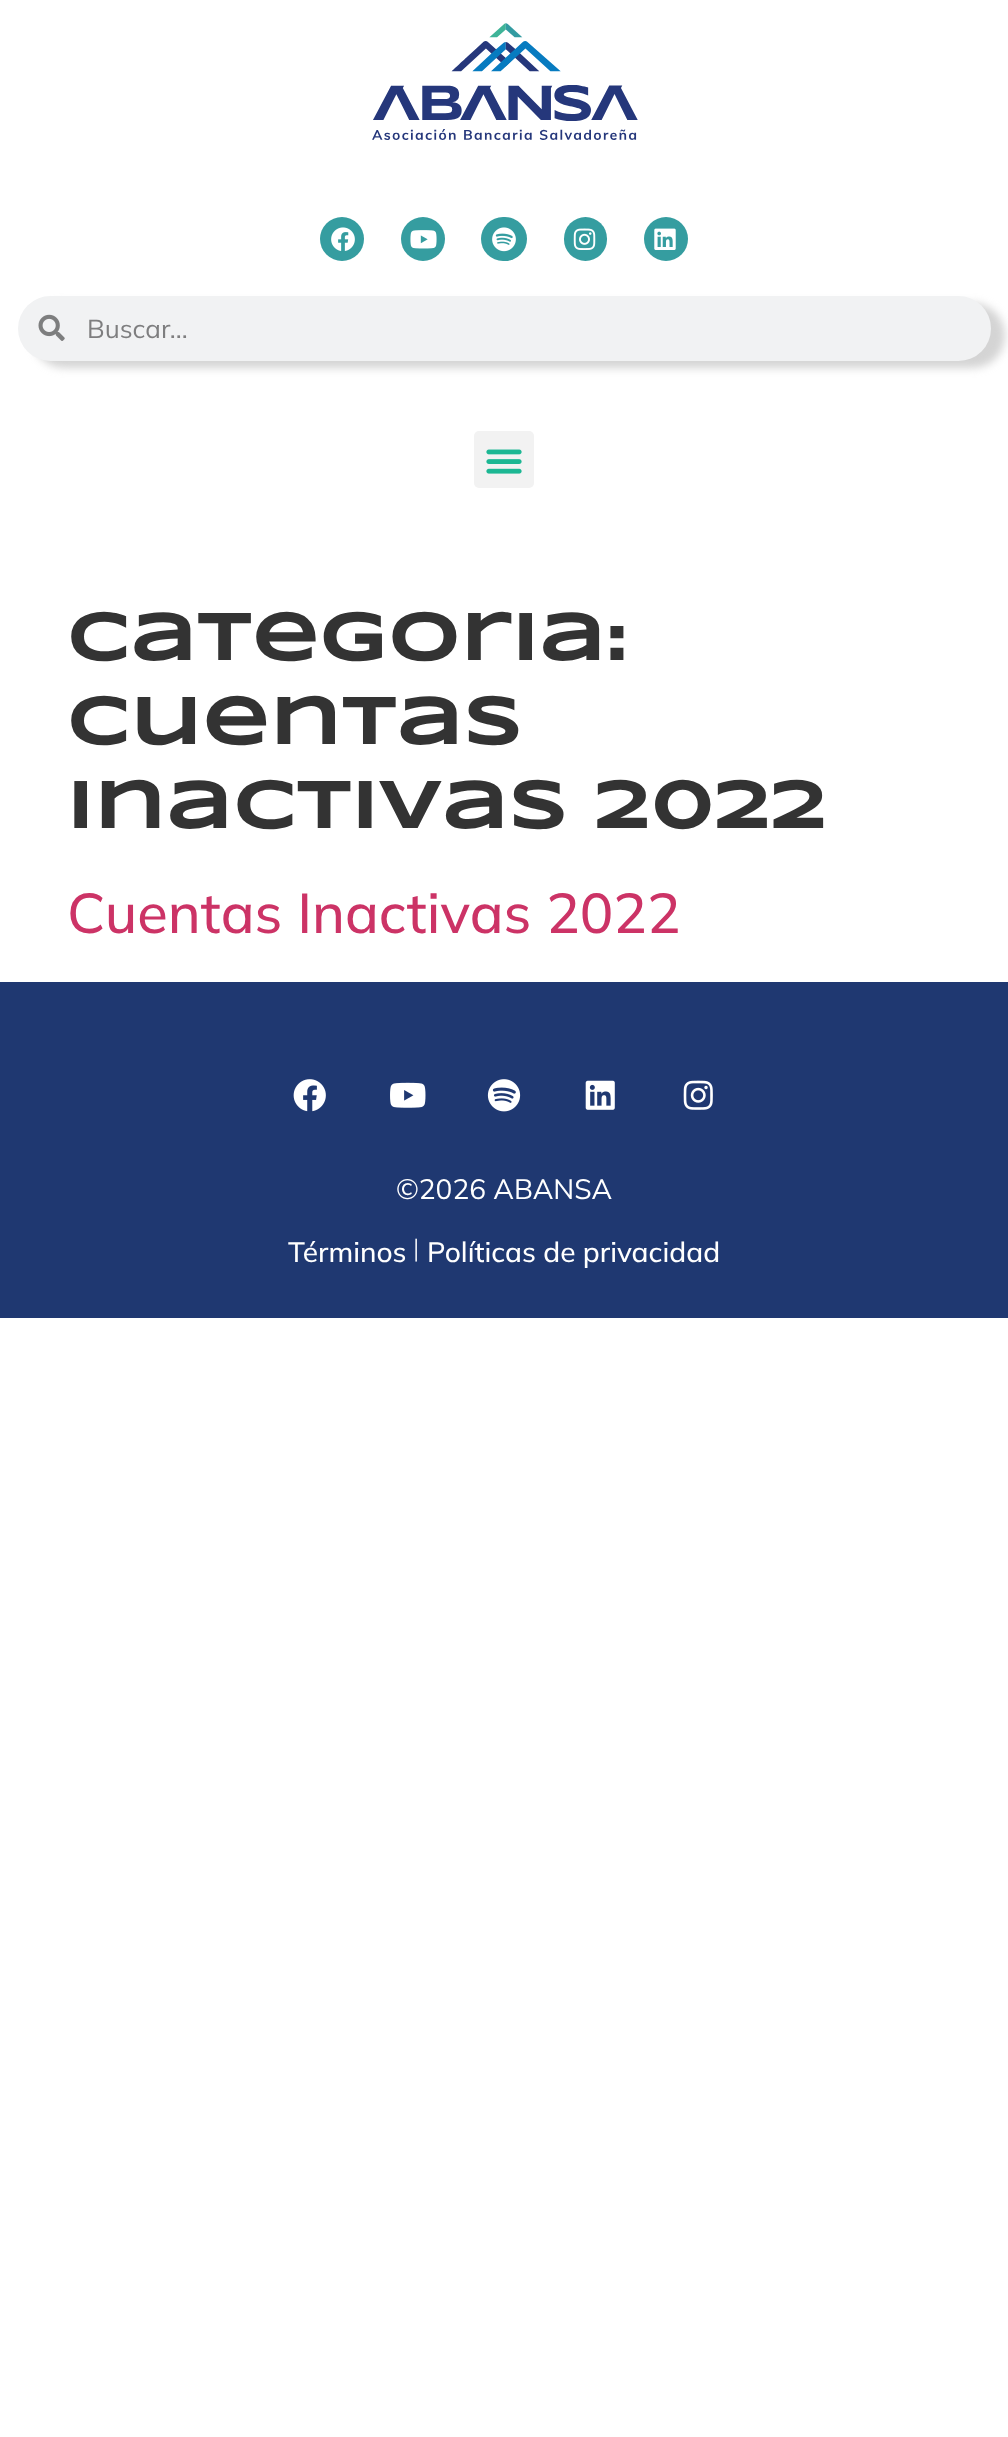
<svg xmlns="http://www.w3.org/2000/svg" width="1008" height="2437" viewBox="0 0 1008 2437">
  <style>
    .t1 { font: 26px Mulish; fill: #7e7e7f; }
    .t2 { font: bold 70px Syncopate; fill: #333; }
    .t3 { font: 500 56px Mulish; fill: #c36; }
    .t4 { font: 28px Mulish; fill: #fff; }
    .t5 { font: 500 28px Mulish; fill: #fff; }
    .t6 { font: 19px Inter; fill: #fff; }
  </style>
  <rect width="100%" height="100%" fill="#fff"/>
  <image x="372" y="23" width="266" height="117" href="images/1.png"/>
  <circle cx="342" cy="239" r="22" fill="#359da0"/>
  <image x="331" y="227" width="24" height="24" href="images/2.png"/>
  <circle cx="423" cy="239" r="22" fill="#359da0"/>
  <image x="410" y="230" width="27" height="19" href="images/3.png"/>
  <rect x="481" y="217" width="46" height="44" rx="22" fill="#359da0"/>
  <image x="492" y="227" width="24" height="25" href="images/4.png"/>
  <rect x="564" y="217" width="43" height="44" rx="21.5" fill="#359da0"/>
  <image x="573" y="228" width="23" height="22" href="images/5.png"/>
  <circle cx="666" cy="239" r="22" fill="#359da0"/>
  <image x="654" y="228" width="22" height="22" href="images/6.png"/>
  <rect x="32" y="303" width="973" height="65" rx="32.5" fill="#aaaaaa80" filter="blur(4.5px)"/>
  <rect x="18" y="296" width="973" height="65" rx="32.5" fill="#f1f2f3"/>
  <image x="38" y="314" width="27" height="27" href="images/7.png"/>
  <text x="87" y="338" class="t1">Buscar...</text>
  <rect x="474" y="431" width="60" height="57" rx="5" fill="#f2f2f2"/>
  <image x="486" y="449" width="36" height="25" href="images/8.png"/>
  <text x="67" y="660" class="t2">Categoria:</text>
  <text x="67" y="744" class="t2">Cuentas</text>
  <text x="67" y="828" class="t2">Inactivas 2022</text>
  <text x="67" y="933" class="t3">Cuentas Inactivas 2022</text>
  <rect x="0" y="982" width="1008" height="336" fill="#1f3871"/>
  <image x="293" y="1079" width="33" height="33" href="images/9.png"/>
  <image x="390" y="1082" width="36" height="26" href="images/10.png"/>
  <image x="487" y="1079" width="34" height="33" href="images/11.png"/>
  <image x="585" y="1080" width="30" height="30" href="images/12.png"/>
  <image x="683" y="1080" width="30" height="30" href="images/13.png"/>
  <text x="396" y="1199" class="t4">©2026 ABANSA</text>
  <text x="288" y="1262" class="t5">Términos</text>
  <text x="413" y="1257" class="t6">|</text>
  <text x="427" y="1262" class="t5">Políticas de privacidad</text>
</svg>
